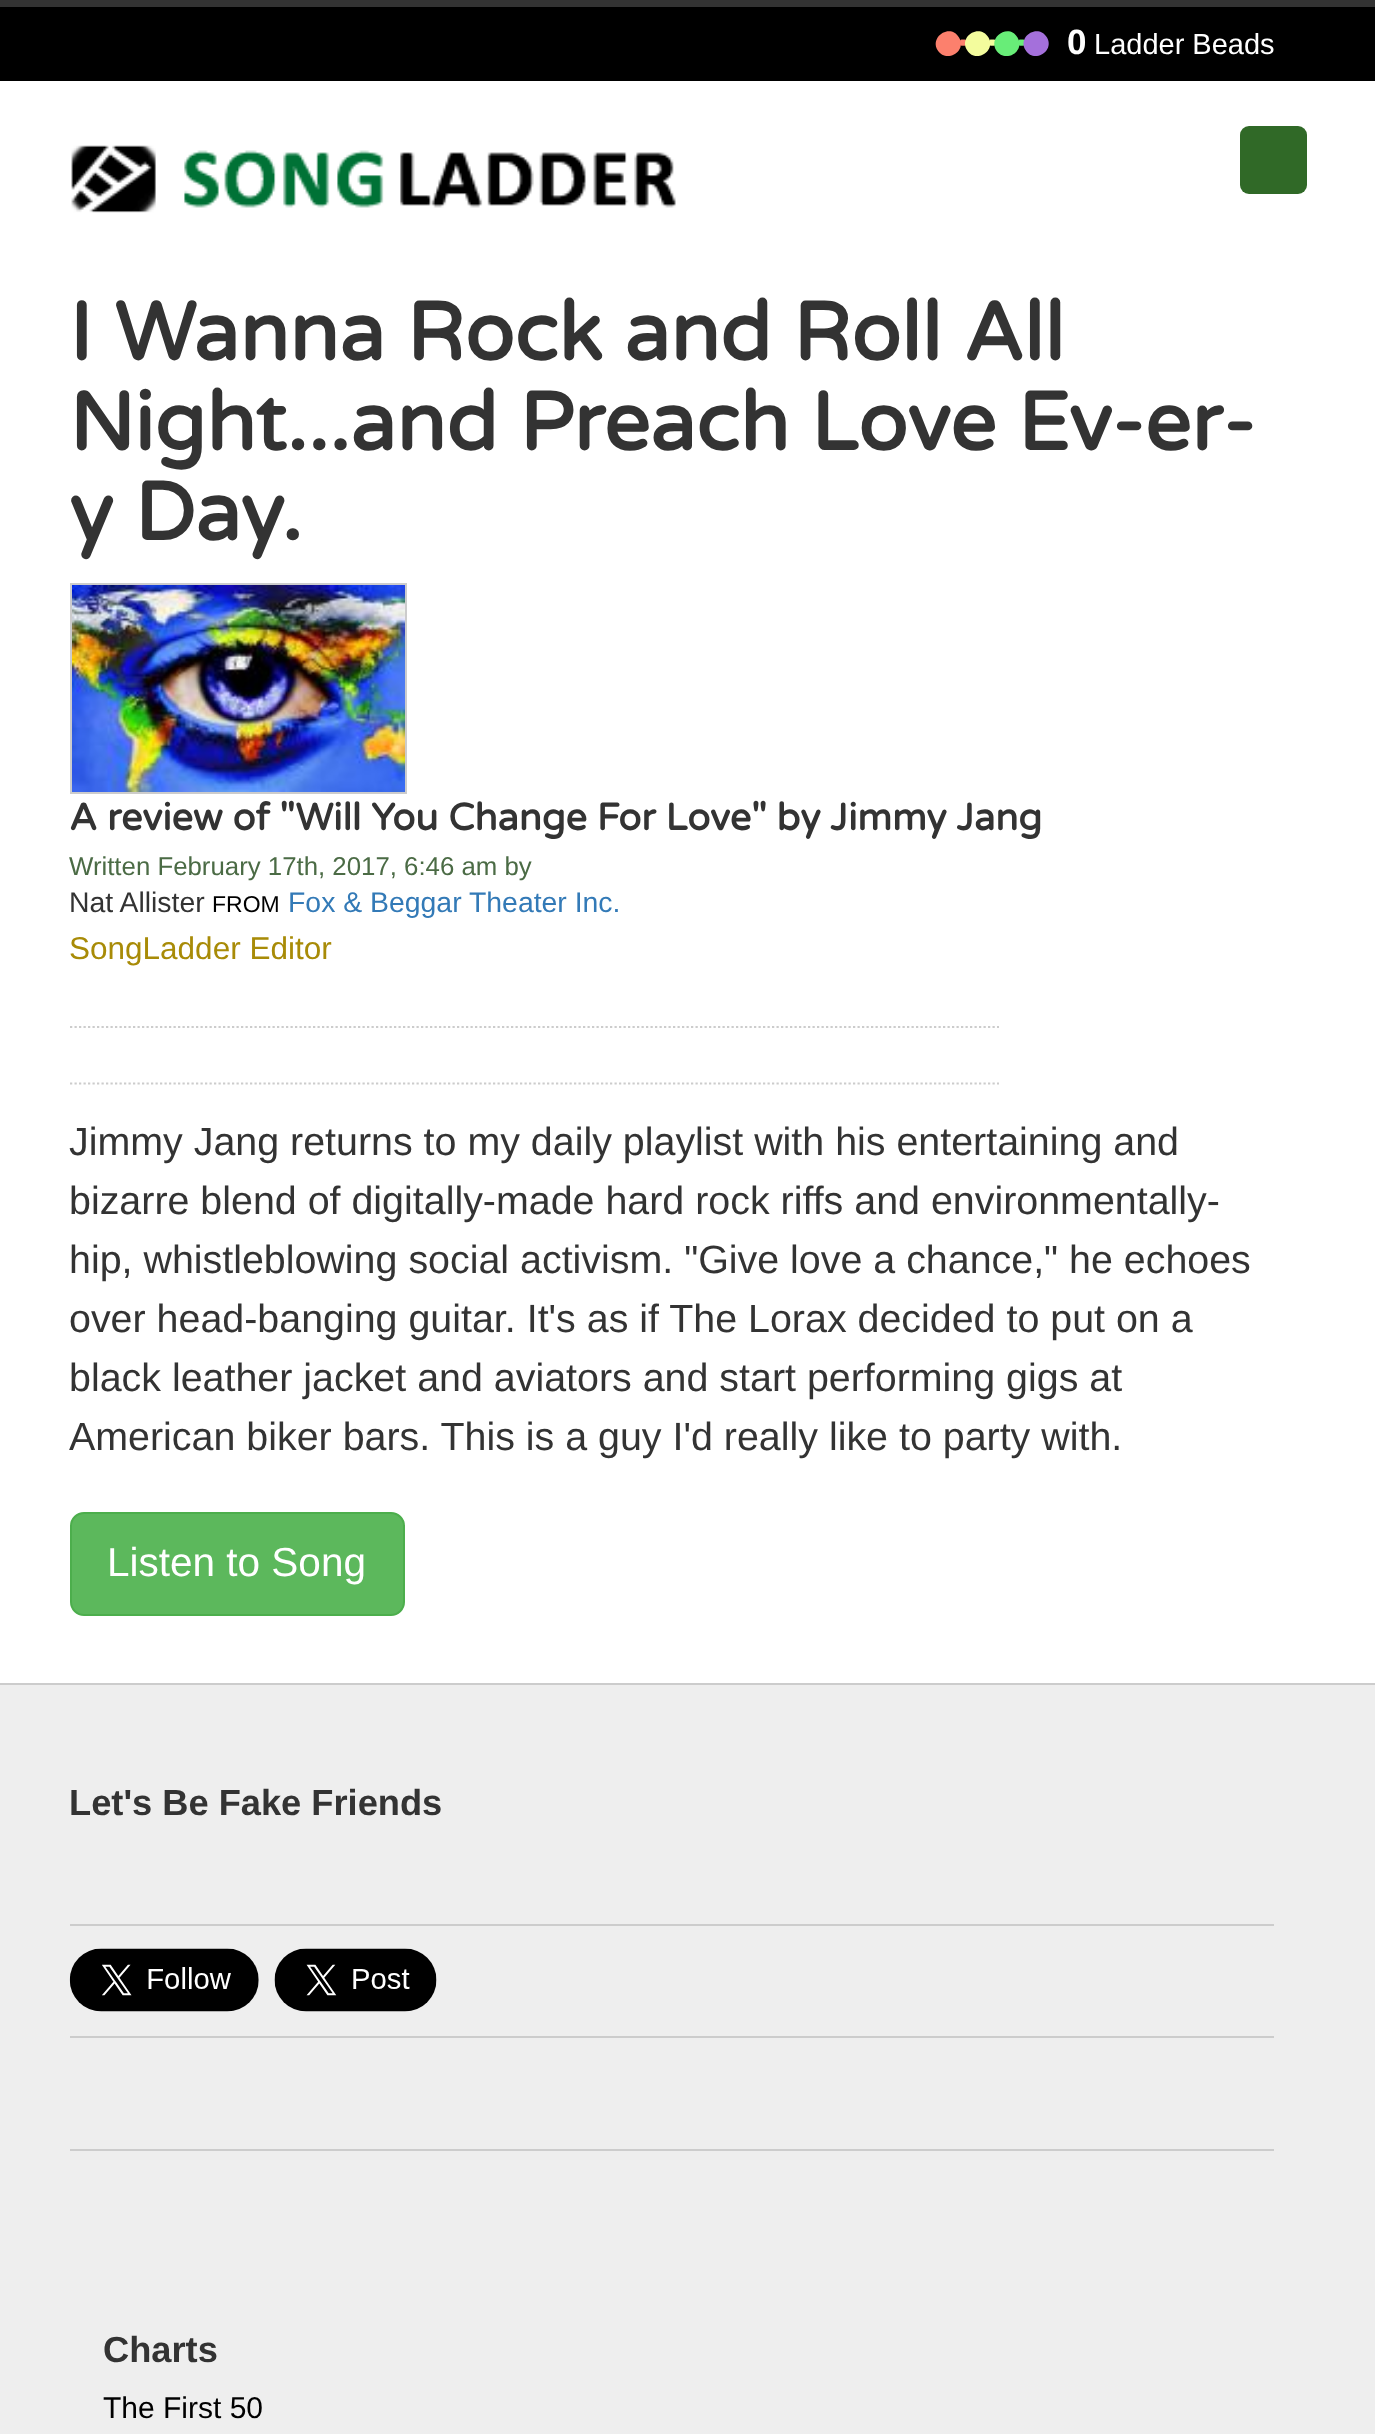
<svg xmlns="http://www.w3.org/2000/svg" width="1375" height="2434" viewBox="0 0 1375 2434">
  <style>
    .t1 { font: bold 35px Liberation Sans; fill: #fff; }
    .t2 { font: 29px Liberation Sans; fill: #fff; }
    .t3 { font: bold 81.9px Varela Round; fill: #333; }
    .t4 { font: bold 37.8px Varela Round; fill: #333; }
    .t5 { font: 25.8px Liberation Sans; fill: #4b6b45; }
    .t6 { font: 28.4px Liberation Sans; fill: #333; }
    .t7 { font: 23px Liberation Sans; fill: #000; }
    .t8 { font: 28.4px Liberation Sans; fill: #337ab7; }
    .t9 { font: 31.5px Liberation Sans; fill: #a88b07; }
    .t10 { font: 39.4px Liberation Sans; fill: #333; }
    .t11 { font: 40.5px Liberation Sans; fill: #fff; }
    .t12 { font: bold 36.25px Liberation Sans; fill: #333; }
    .t13 { font: 30px Liberation Sans; fill: #000; }
  </style>
  <rect width="100%" height="100%" fill="#fff"/>
  <rect x="0" y="0" width="1375" height="7" fill="#333"/>
  <rect x="0" y="7" width="1375" height="74" fill="#000"/>
  <path d="M959 37.5C967.5 51.5 946 64 937.5 50C929.5 36 951 23 959 37.5Z" fill="#fc806d"/>
  <image x="960" y="39" width="6" height="7" href="images/1.png"/>
  <path d="M988.5 37.5C996.5 51.5 975 64 967 50C958.5 36 980 23 988.5 37.5Z" fill="#f3fc9d"/>
  <image x="989" y="39" width="6" height="7" href="images/2.png"/>
  <path d="M1017.5 37.5C1026 51.5 1004.5 64 996 50C988 36 1009.5 23 1017.5 37.5Z" fill="#68ed78"/>
  <image x="1018" y="39" width="7" height="7" href="images/3.png"/>
  <path d="M1047 37.5C1055 51.5 1033.5 64 1025.5 50C1017 36 1038.5 23 1047 37.5Z" fill="#a470db"/>
  <text x="1067" y="54" class="t1">0</text>
  <text x="1094" y="54" class="t2">Ladder Beads</text>
  <image x="71" y="145" width="605" height="68" href="images/4.png"/>
  <rect x="1240" y="126" width="67" height="68" rx="9" fill="#306927"/>
  <text x="69" y="360" class="t3">I Wanna Rock and Roll All</text>
  <text x="69" y="450" class="t3">Night...and Preach Love Ev-er-</text>
  <text x="69" y="540" class="t3">y Day.</text>
  <rect x="71" y="584" width="335" height="209" fill="none" stroke="#ccc" stroke-width="2"/>
  <image x="72" y="585" width="333" height="207" href="images/5.png"/>
  <text x="69" y="830" class="t4">A review of "Will You Change For Love" by Jimmy Jang</text>
  <text x="69" y="875" class="t5">Written February 17th, 2017, 6:46 am by</text>
  <text x="69" y="912" class="t6">Nat Allister</text>
  <text x="212" y="912" class="t7">FROM</text>
  <text x="288" y="912" class="t8">Fox &amp; Beggar Theater Inc.</text>
  <text x="69" y="959" class="t9">SongLadder Editor</text>
  <path d="M70 1027H999" fill="none" stroke="#ccc" stroke-width="2.2" stroke-dasharray="2.25 2.25"/>
  <path d="M70 1083.5H999" fill="none" stroke="#ccc" stroke-width="2.2" stroke-dasharray="2.25 2.25"/>
  <text x="69" y="1155" class="t10">Jimmy Jang returns to my daily playlist with his entertaining and</text>
  <text x="69" y="1214" class="t10">bizarre blend of digitally-made hard rock riffs and environmentally-</text>
  <text x="69" y="1273" class="t10">hip, whistleblowing social activism. "Give love a chance," he echoes</text>
  <text x="69" y="1332" class="t10">over head-banging guitar. It's as if The Lorax decided to put on a</text>
  <text x="69" y="1391" class="t10">black leather jacket and aviators and start performing gigs at</text>
  <text x="69" y="1450" class="t10">American biker bars. This is a guy I'd really like to party with.</text>
  <rect x="71" y="1513" width="333" height="102" rx="13" fill="#5cb85c" stroke="#4cae4c" stroke-width="2"/>
  <text x="107" y="1576" class="t11">Listen to Song</text>
  <rect x="0" y="1685" width="1375" height="749" fill="#eee"/>
  <rect x="0" y="1683" width="1375" height="2" fill="#ccc"/>
  <text x="69" y="1815" class="t12">Let's Be Fake Friends</text>
  <rect x="70" y="1924" width="1204" height="2" fill="#ccc"/>
  <rect x="70" y="2036" width="1204" height="2" fill="#ccc"/>
  <image x="69" y="1948" width="190" height="64" href="images/6.png"/>
  <image x="274" y="1948" width="163" height="64" href="images/7.png"/>
  <rect x="70" y="2149" width="1204" height="2" fill="#ccc"/>
  <text x="103" y="2362" class="t12">Charts</text>
  <text x="103" y="2418" class="t13">The First 50</text>
</svg>
